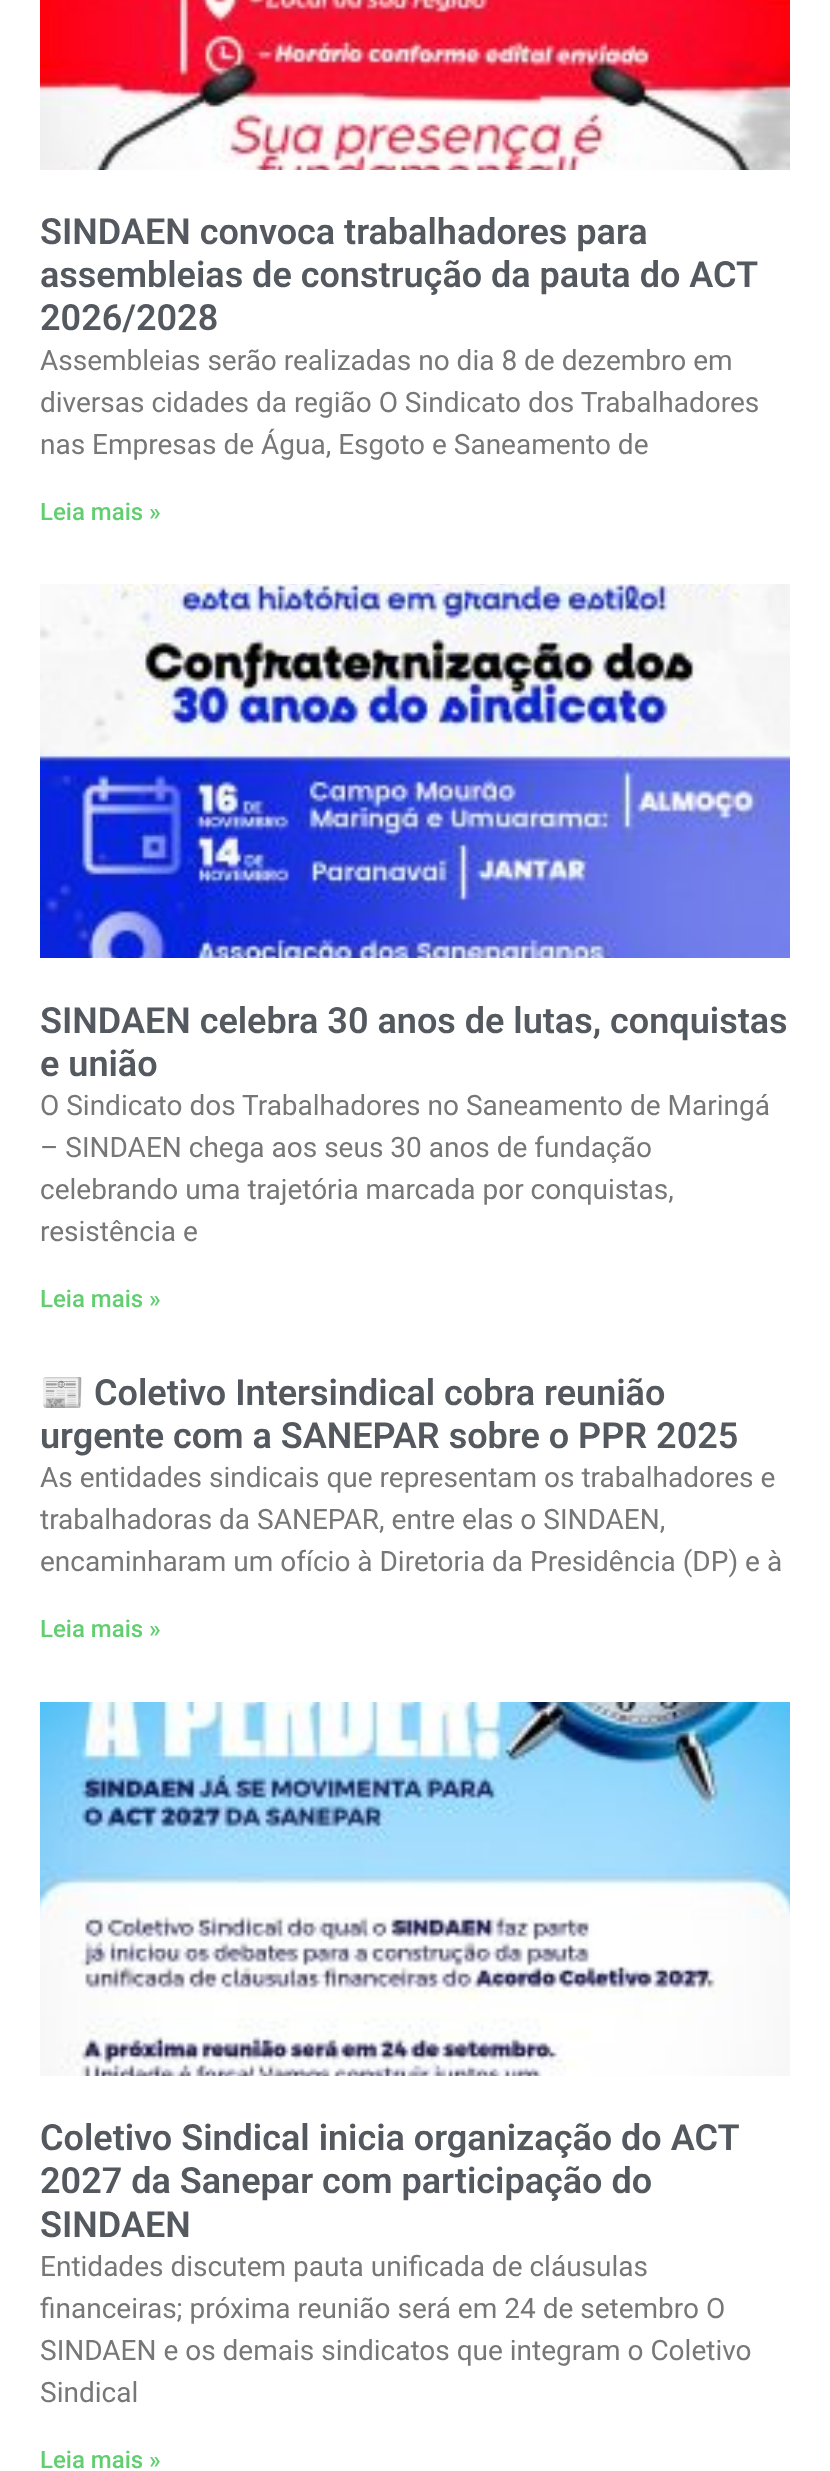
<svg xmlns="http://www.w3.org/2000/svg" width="830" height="2471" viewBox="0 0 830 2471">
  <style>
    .t1 { font: 600 36px Roboto; fill: #54595f; }
    .t2 { font: 28px Roboto; fill: #777; }
    .t3 { font: 500 24px Roboto; fill: #61ce70; }
    .t4 { font: bold 36px Noto Color Emoji; fill: #54595f; }
  </style>
  <rect width="100%" height="100%" fill="#fff"/>
  <image x="40" y="0" width="750" height="170" href="images/1.png"/>
  <text x="40" y="244" class="t1">SINDAEN convoca trabalhadores para</text>
  <text x="40" y="287" class="t1">assembleias de construção da pauta do ACT</text>
  <text x="40" y="330" class="t1">2026/2028</text>
  <text x="40" y="370" class="t2">Assembleias serão realizadas no dia 8 de dezembro em</text>
  <text x="40" y="412" class="t2">diversas cidades da região O Sindicato dos Trabalhadores</text>
  <text x="40" y="454" class="t2">nas Empresas de Água, Esgoto e Saneamento de</text>
  <text x="40" y="520" class="t3">Leia mais »</text>
  <image x="40" y="584" width="750" height="374" href="images/2.png"/>
  <text x="40" y="1033" class="t1">SINDAEN celebra 30 anos de lutas, conquistas</text>
  <text x="40" y="1076" class="t1">e união</text>
  <text x="40" y="1115" class="t2">O Sindicato dos Trabalhadores no Saneamento de Maringá</text>
  <text x="40" y="1157" class="t2">– SINDAEN chega aos seus 30 anos de fundação</text>
  <text x="40" y="1199" class="t2">celebrando uma trajetória marcada por conquistas,</text>
  <text x="40" y="1241" class="t2">resistência e</text>
  <text x="40" y="1307" class="t3">Leia mais »</text>
  <text x="40" y="1405" class="t4">📰</text>
  <text x="94" y="1405" class="t1">Coletivo Intersindical cobra reunião</text>
  <text x="40" y="1448" class="t1">urgente com a SANEPAR sobre o PPR 2025</text>
  <text x="40" y="1487" class="t2">As entidades sindicais que representam os trabalhadores e</text>
  <text x="40" y="1529" class="t2">trabalhadoras da SANEPAR, entre elas o SINDAEN,</text>
  <text x="40" y="1571" class="t2">encaminharam um ofício à Diretoria da Presidência (DP) e à</text>
  <text x="40" y="1637" class="t3">Leia mais »</text>
  <image x="40" y="1702" width="750" height="374" href="images/3.png"/>
  <text x="40" y="2150" class="t1">Coletivo Sindical inicia organização do ACT</text>
  <text x="40" y="2193" class="t1">2027 da Sanepar com participação do</text>
  <text x="40" y="2237" class="t1">SINDAEN</text>
  <text x="40" y="2276" class="t2">Entidades discutem pauta unificada de cláusulas</text>
  <text x="40" y="2318" class="t2">financeiras; próxima reunião será em 24 de setembro O</text>
  <text x="40" y="2360" class="t2">SINDAEN e os demais sindicatos que integram o Coletivo</text>
  <text x="40" y="2402" class="t2">Sindical</text>
  <text x="40" y="2468" class="t3">Leia mais »</text>
</svg>
